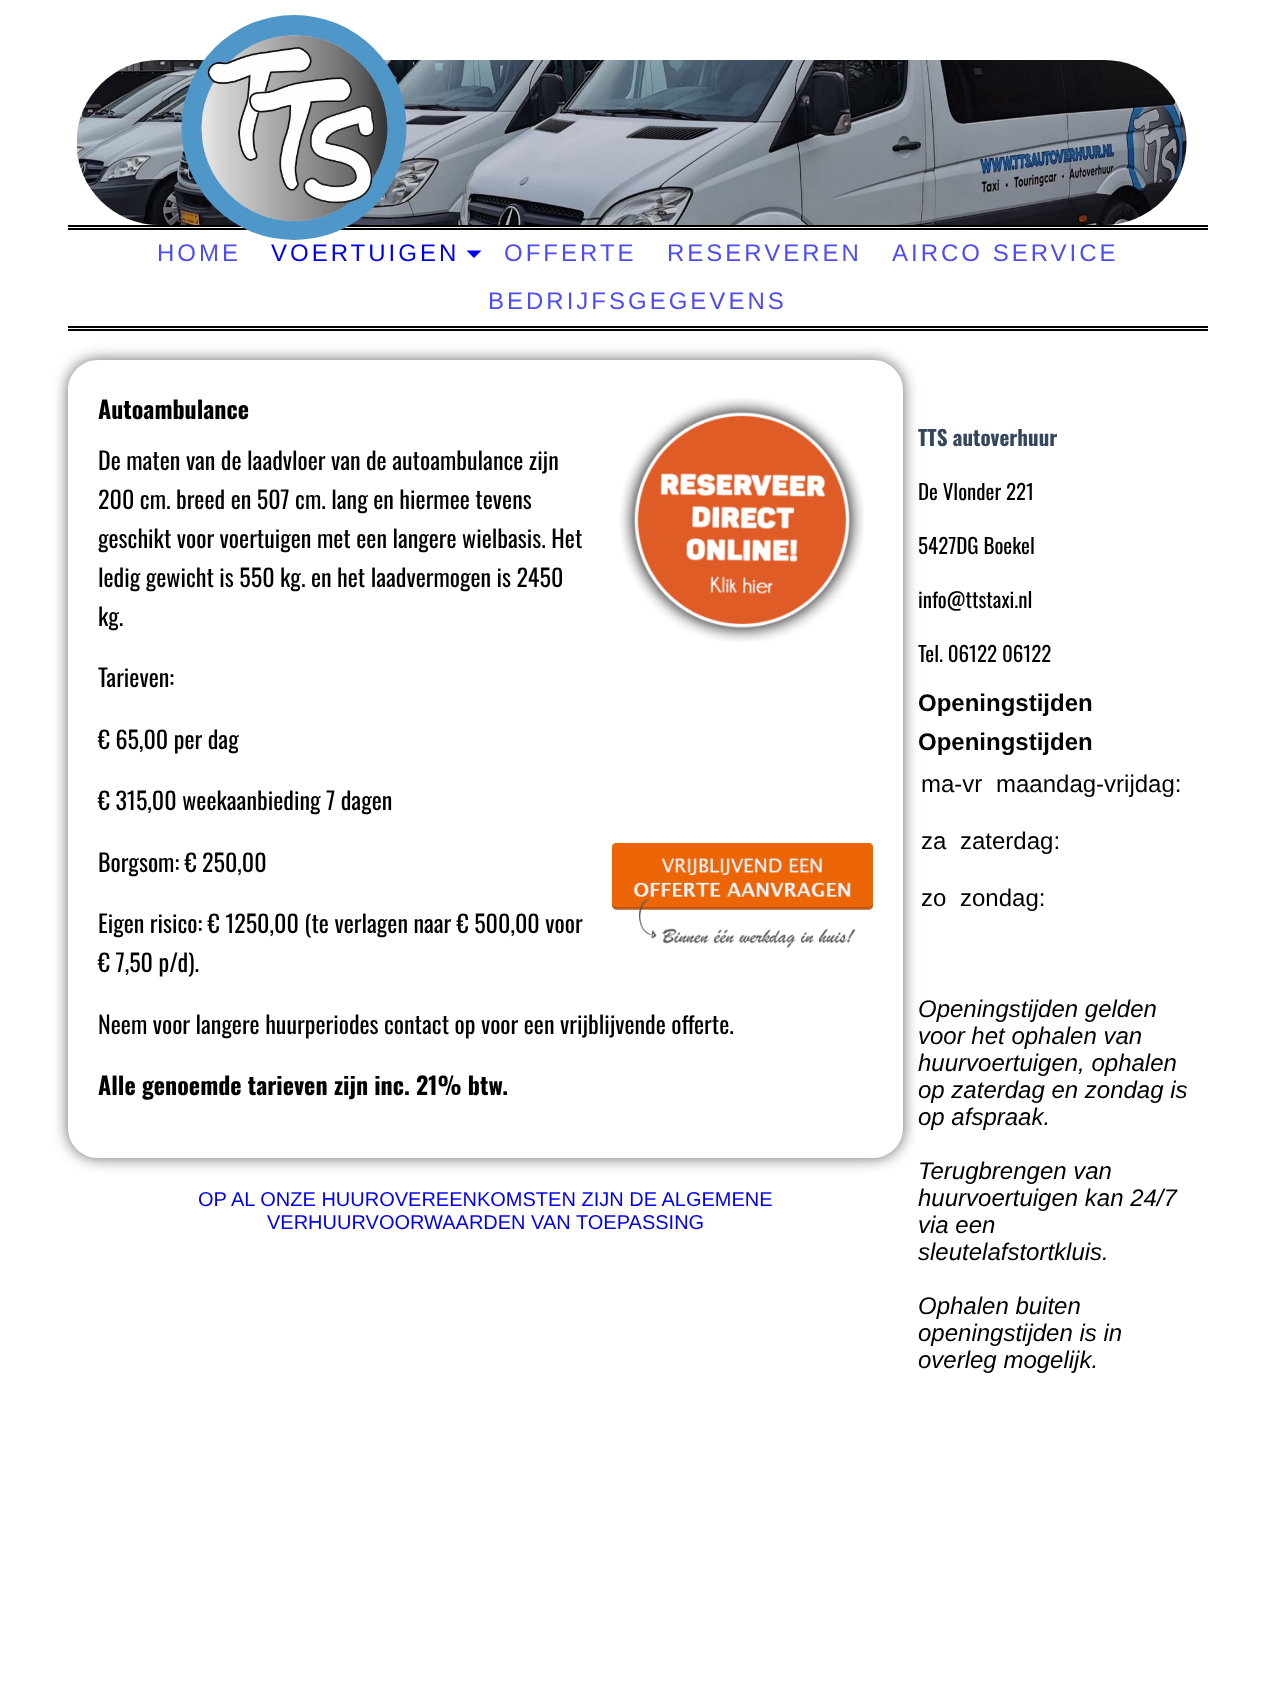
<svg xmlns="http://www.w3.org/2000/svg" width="1274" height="1681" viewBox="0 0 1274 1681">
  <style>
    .t1 { font: 24px Liberation Sans; letter-spacing: 3px; fill: #4d4df3; }
    .t2 { font: 24px Liberation Sans; letter-spacing: 3px; fill: #00e; }
    .t3 { font: bold 24px Oswald; fill: #000; }
    .t4 { font: 24px Oswald; fill: #000; }
    .t5 { font: 20px Liberation Sans; fill: #00e; }
    .t6 { font: bold 21px Oswald; fill: #34465b; }
    .t7 { font: 21px Oswald; fill: #000; }
    .t8 { font: bold 24px Liberation Sans; fill: #000; }
    .t9 { font: 24px Liberation Sans; fill: #000; }
    .t10 { font: italic 24px Liberation Sans; fill: #000; }
  </style>
  <defs>
    <clipPath id="clip1"><path d="M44 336H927V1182H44ZM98 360H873C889.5 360 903 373.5 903 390V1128C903 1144.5 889.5 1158 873 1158H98C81.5 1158 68 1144.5 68 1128V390C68 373.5 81.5 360 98 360Z" clip-rule="evenodd"/></clipPath>
  </defs>
  <rect width="100%" height="100%" fill="#fff"/>
  <image x="77" y="60" width="1110" height="165" href="images/2.png"/>
  <rect x="68" y="225" width="1140" height="2" fill="#000"/>
  <rect x="68" y="228" width="1140" height="2" fill="#000"/>
  <image x="181" y="15" width="226" height="225" href="images/1.png"/>
  <rect x="68" y="326" width="1140" height="2" fill="#000"/>
  <rect x="68" y="329" width="1140" height="2" fill="#000"/>
  <text x="157" y="261" class="t1">HOME</text>
  <text x="271" y="261" class="t2">VOERTUIGEN</text>
  <path d="M466.5 250.5H481.5L474 258Z" fill="#00e"/>
  <text x="504" y="261" class="t1">OFFERTE</text>
  <text x="667" y="261" class="t1">RESERVEREN</text>
  <text x="892" y="261" class="t1">AIRCO SERVICE</text>
  <text x="488" y="309" class="t1">BEDRIJFSGEGEVENS</text>
  <g clip-path="url(#clip1)">
    <rect x="68" y="360" width="835" height="798" rx="30" fill="#666" filter="blur(7.5px)"/>
  </g>
  <text x="98" y="419" class="t3">Autoambulance</text>
  <image x="620" y="398" width="244" height="244" href="images/3.png"/>
  <text x="98" y="470" class="t4">De maten van de laadvloer van de autoambulance zijn</text>
  <text x="98" y="509" class="t4">200 cm. breed en 507 cm. lang en hiermee tevens</text>
  <text x="98" y="548" class="t4">geschikt voor voertuigen met een langere wielbasis. Het</text>
  <text x="98" y="587" class="t4">ledig gewicht is 550 kg. en het laadvermogen is 2450</text>
  <text x="98" y="626" class="t4">kg.</text>
  <text x="98" y="687" class="t4">Tarieven:</text>
  <text x="98" y="749" class="t4">€ 65,00 per dag</text>
  <text x="98" y="810" class="t4">€ 315,00 weekaanbieding 7 dagen</text>
  <text x="98" y="872" class="t4">Borgsom: € 250,00</text>
  <image x="612" y="843" width="261" height="105" href="images/4.png"/>
  <text x="98" y="933" class="t4">Eigen risico: € 1250,00 (te verlagen naar € 500,00 voor</text>
  <text x="98" y="972" class="t4">€ 7,50 p/d).</text>
  <text x="98" y="1034" class="t4">Neem voor langere huurperiodes contact op voor een vrijblijvende offerte.</text>
  <text x="98" y="1095" class="t3">Alle genoemde tarieven zijn inc. 21% btw.</text>
  <text x="198" y="1206" class="t5">OP AL ONZE HUUROVEREENKOMSTEN ZIJN DE ALGEMENE</text>
  <text x="267" y="1229" class="t5">VERHUURVOORWAARDEN VAN TOEPASSING</text>
  <text x="918" y="446" class="t6">TTS autoverhuur</text>
  <text x="918" y="500" class="t7">De Vlonder 221</text>
  <text x="918" y="554" class="t7">5427DG Boekel</text>
  <text x="918" y="608" class="t7">info@ttstaxi.nl</text>
  <text x="918" y="662" class="t7">Tel. 06122 06122</text>
  <text x="918" y="711" class="t8">Openingstijden</text>
  <text x="918" y="750" class="t8">Openingstijden</text>
  <text x="921" y="792" class="t9">ma-vr</text>
  <text x="996" y="792" class="t9">maandag-vrijdag:</text>
  <text x="921" y="849" class="t9">za</text>
  <text x="960" y="849" class="t9">zaterdag:</text>
  <text x="921" y="906" class="t9">zo</text>
  <text x="960" y="906" class="t9">zondag:</text>
  <text x="918" y="1017" class="t10">Openingstijden gelden</text>
  <text x="918" y="1044" class="t10">voor het ophalen van</text>
  <text x="918" y="1071" class="t10">huurvoertuigen, ophalen</text>
  <text x="918" y="1098" class="t10">op zaterdag en zondag is</text>
  <text x="918" y="1125" class="t10">op afspraak.</text>
  <text x="918" y="1179" class="t10">Terugbrengen van</text>
  <text x="918" y="1206" class="t10">huurvoertuigen kan 24/7</text>
  <text x="918" y="1233" class="t10">via een</text>
  <text x="918" y="1260" class="t10">sleutelafstortkluis.</text>
  <text x="918" y="1314" class="t10">Ophalen buiten</text>
  <text x="918" y="1341" class="t10">openingstijden is in</text>
  <text x="918" y="1368" class="t10">overleg mogelijk.</text>
</svg>
